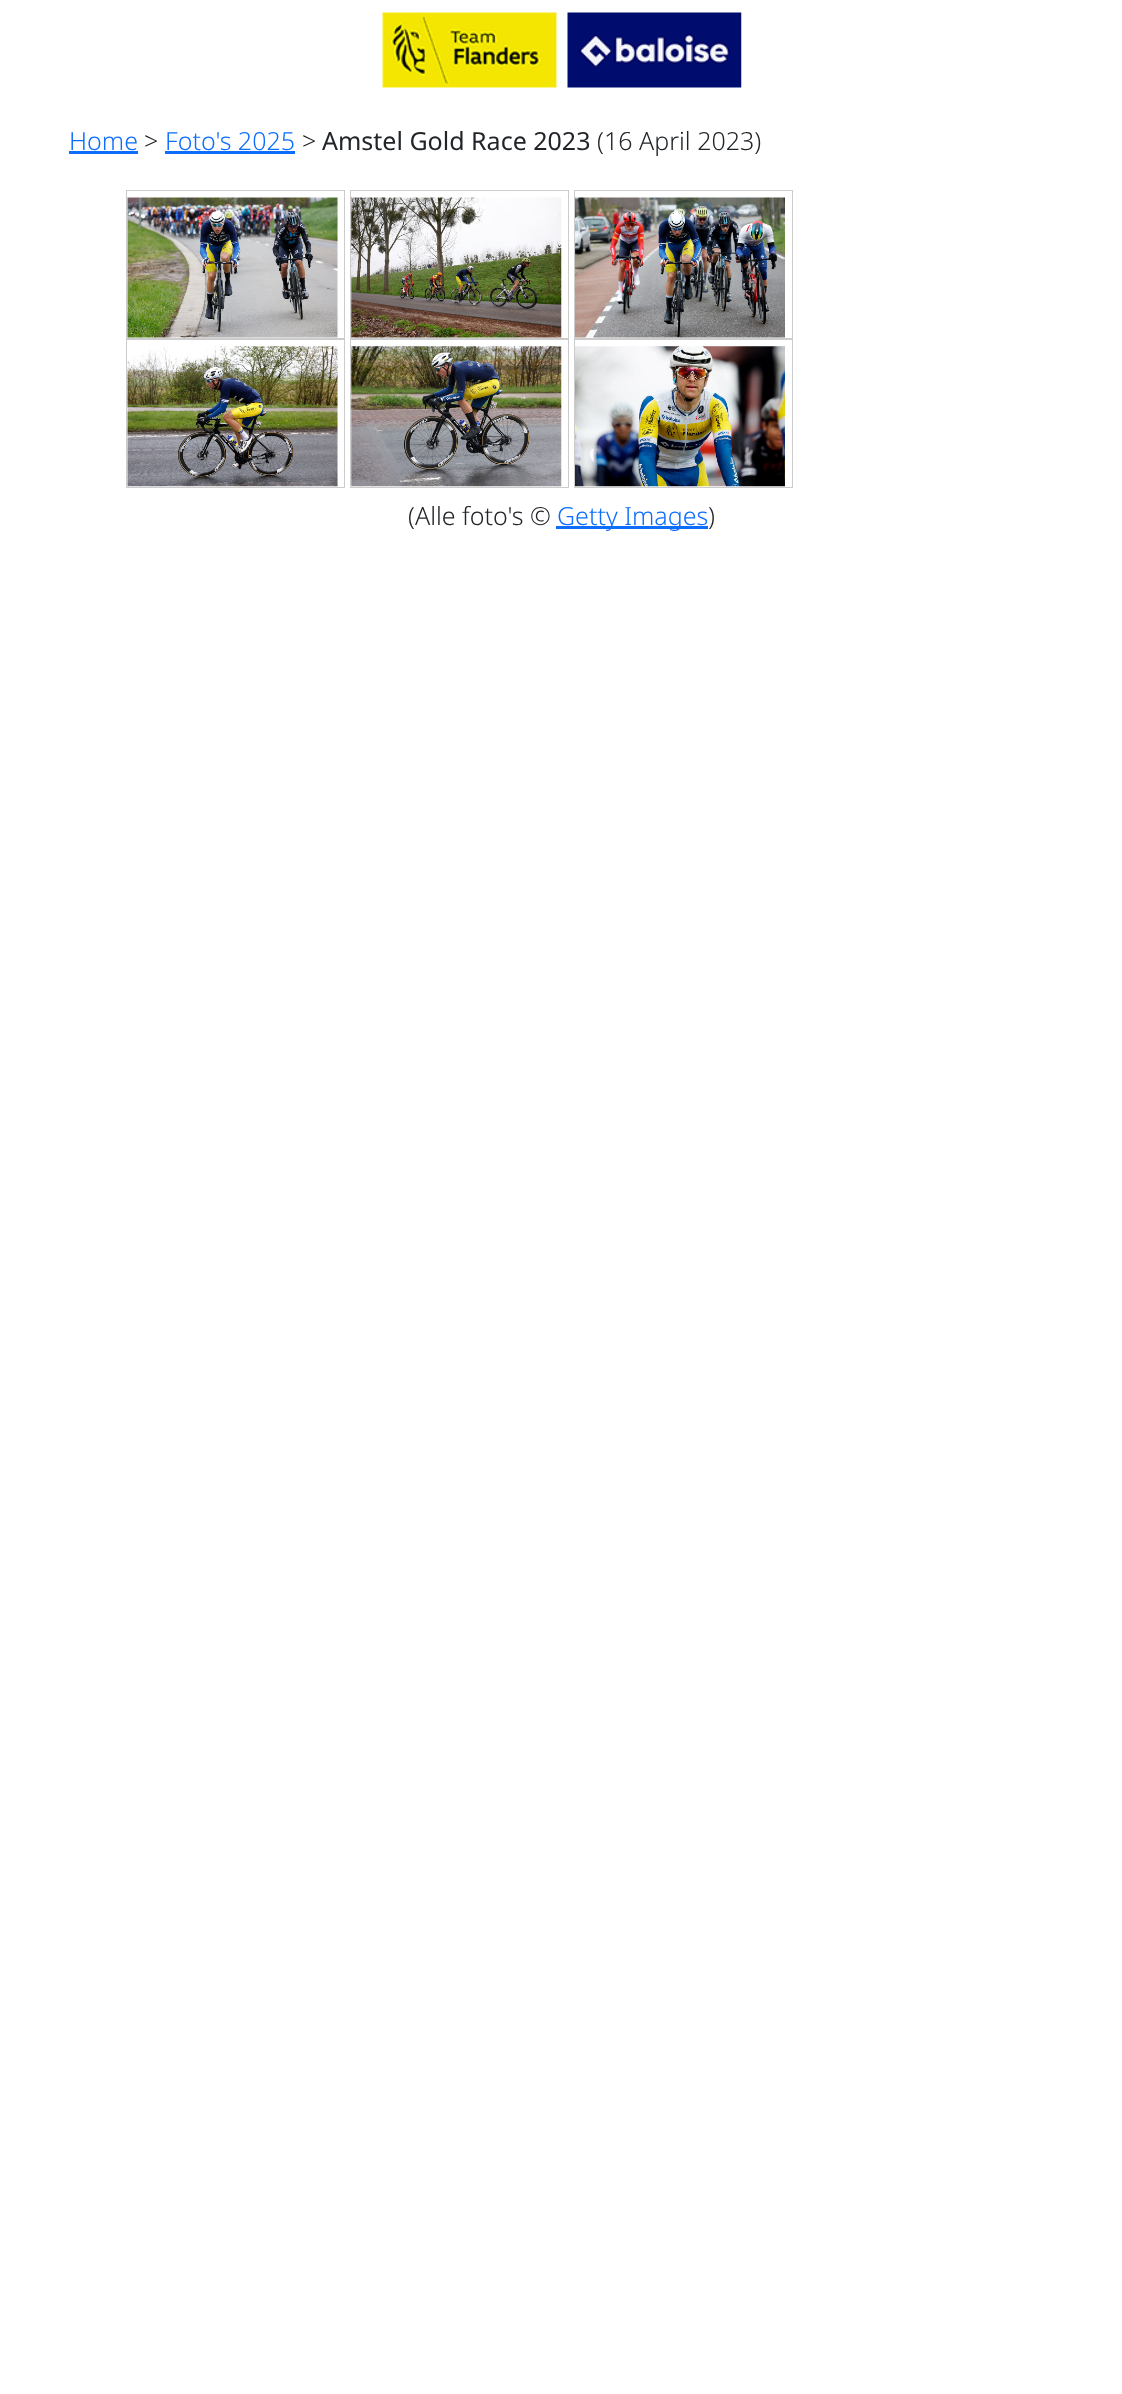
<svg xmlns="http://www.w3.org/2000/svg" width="1122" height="2394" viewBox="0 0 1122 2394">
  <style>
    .t1 { font: 300 25px Noto Sans; fill: #0d6efd; }
    .t2 { font: 300 25px Noto Sans; fill: #212529; }
    .t3 { font: 25px Noto Sans; fill: #212529; }
  </style>
  <rect width="100%" height="100%" fill="#fff"/>
  <image x="382" y="12" width="360" height="76" href="images/1.png"/>
  <text x="69" y="150" class="t1">Home</text>
  <rect x="69" y="151" width="69" height="3" fill="#0d6efd"/>
  <text x="144" y="150" class="t2">&gt;</text>
  <text x="165" y="150" class="t1">Foto's 2025</text>
  <rect x="165" y="151" width="130" height="3" fill="#0d6efd"/>
  <text x="302" y="150" class="t2">&gt;</text>
  <text x="322" y="150" class="t3">Amstel Gold Race 2023</text>
  <text x="597" y="150" class="t2">(16 April 2023)</text>
  <rect x="126.5" y="190.5" width="218" height="148" fill="none" stroke="#ccc"/>
  <image x="127" y="197" width="211" height="141" href="images/2.png"/>
  <rect x="350.5" y="190.5" width="218" height="148" fill="none" stroke="#ccc"/>
  <image x="351" y="197" width="211" height="141" href="images/3.png"/>
  <rect x="574.5" y="190.5" width="218" height="148" fill="none" stroke="#ccc"/>
  <image x="575" y="197" width="210" height="141" href="images/4.png"/>
  <rect x="126.5" y="339.5" width="218" height="148" fill="none" stroke="#ccc"/>
  <image x="127" y="346" width="211" height="141" href="images/5.png"/>
  <rect x="350.5" y="339.5" width="218" height="148" fill="none" stroke="#ccc"/>
  <image x="351" y="346" width="211" height="141" href="images/6.png"/>
  <rect x="574.5" y="339.5" width="218" height="148" fill="none" stroke="#ccc"/>
  <image x="575" y="346" width="210" height="141" href="images/7.png"/>
  <text x="408" y="525" class="t2">(Alle foto's ©</text>
  <rect x="556" y="526" width="152" height="3" fill="#0d6efd"/>
  <text x="557" y="525" class="t1">Getty Images</text>
  <text x="708" y="525" class="t2">)</text>
</svg>
